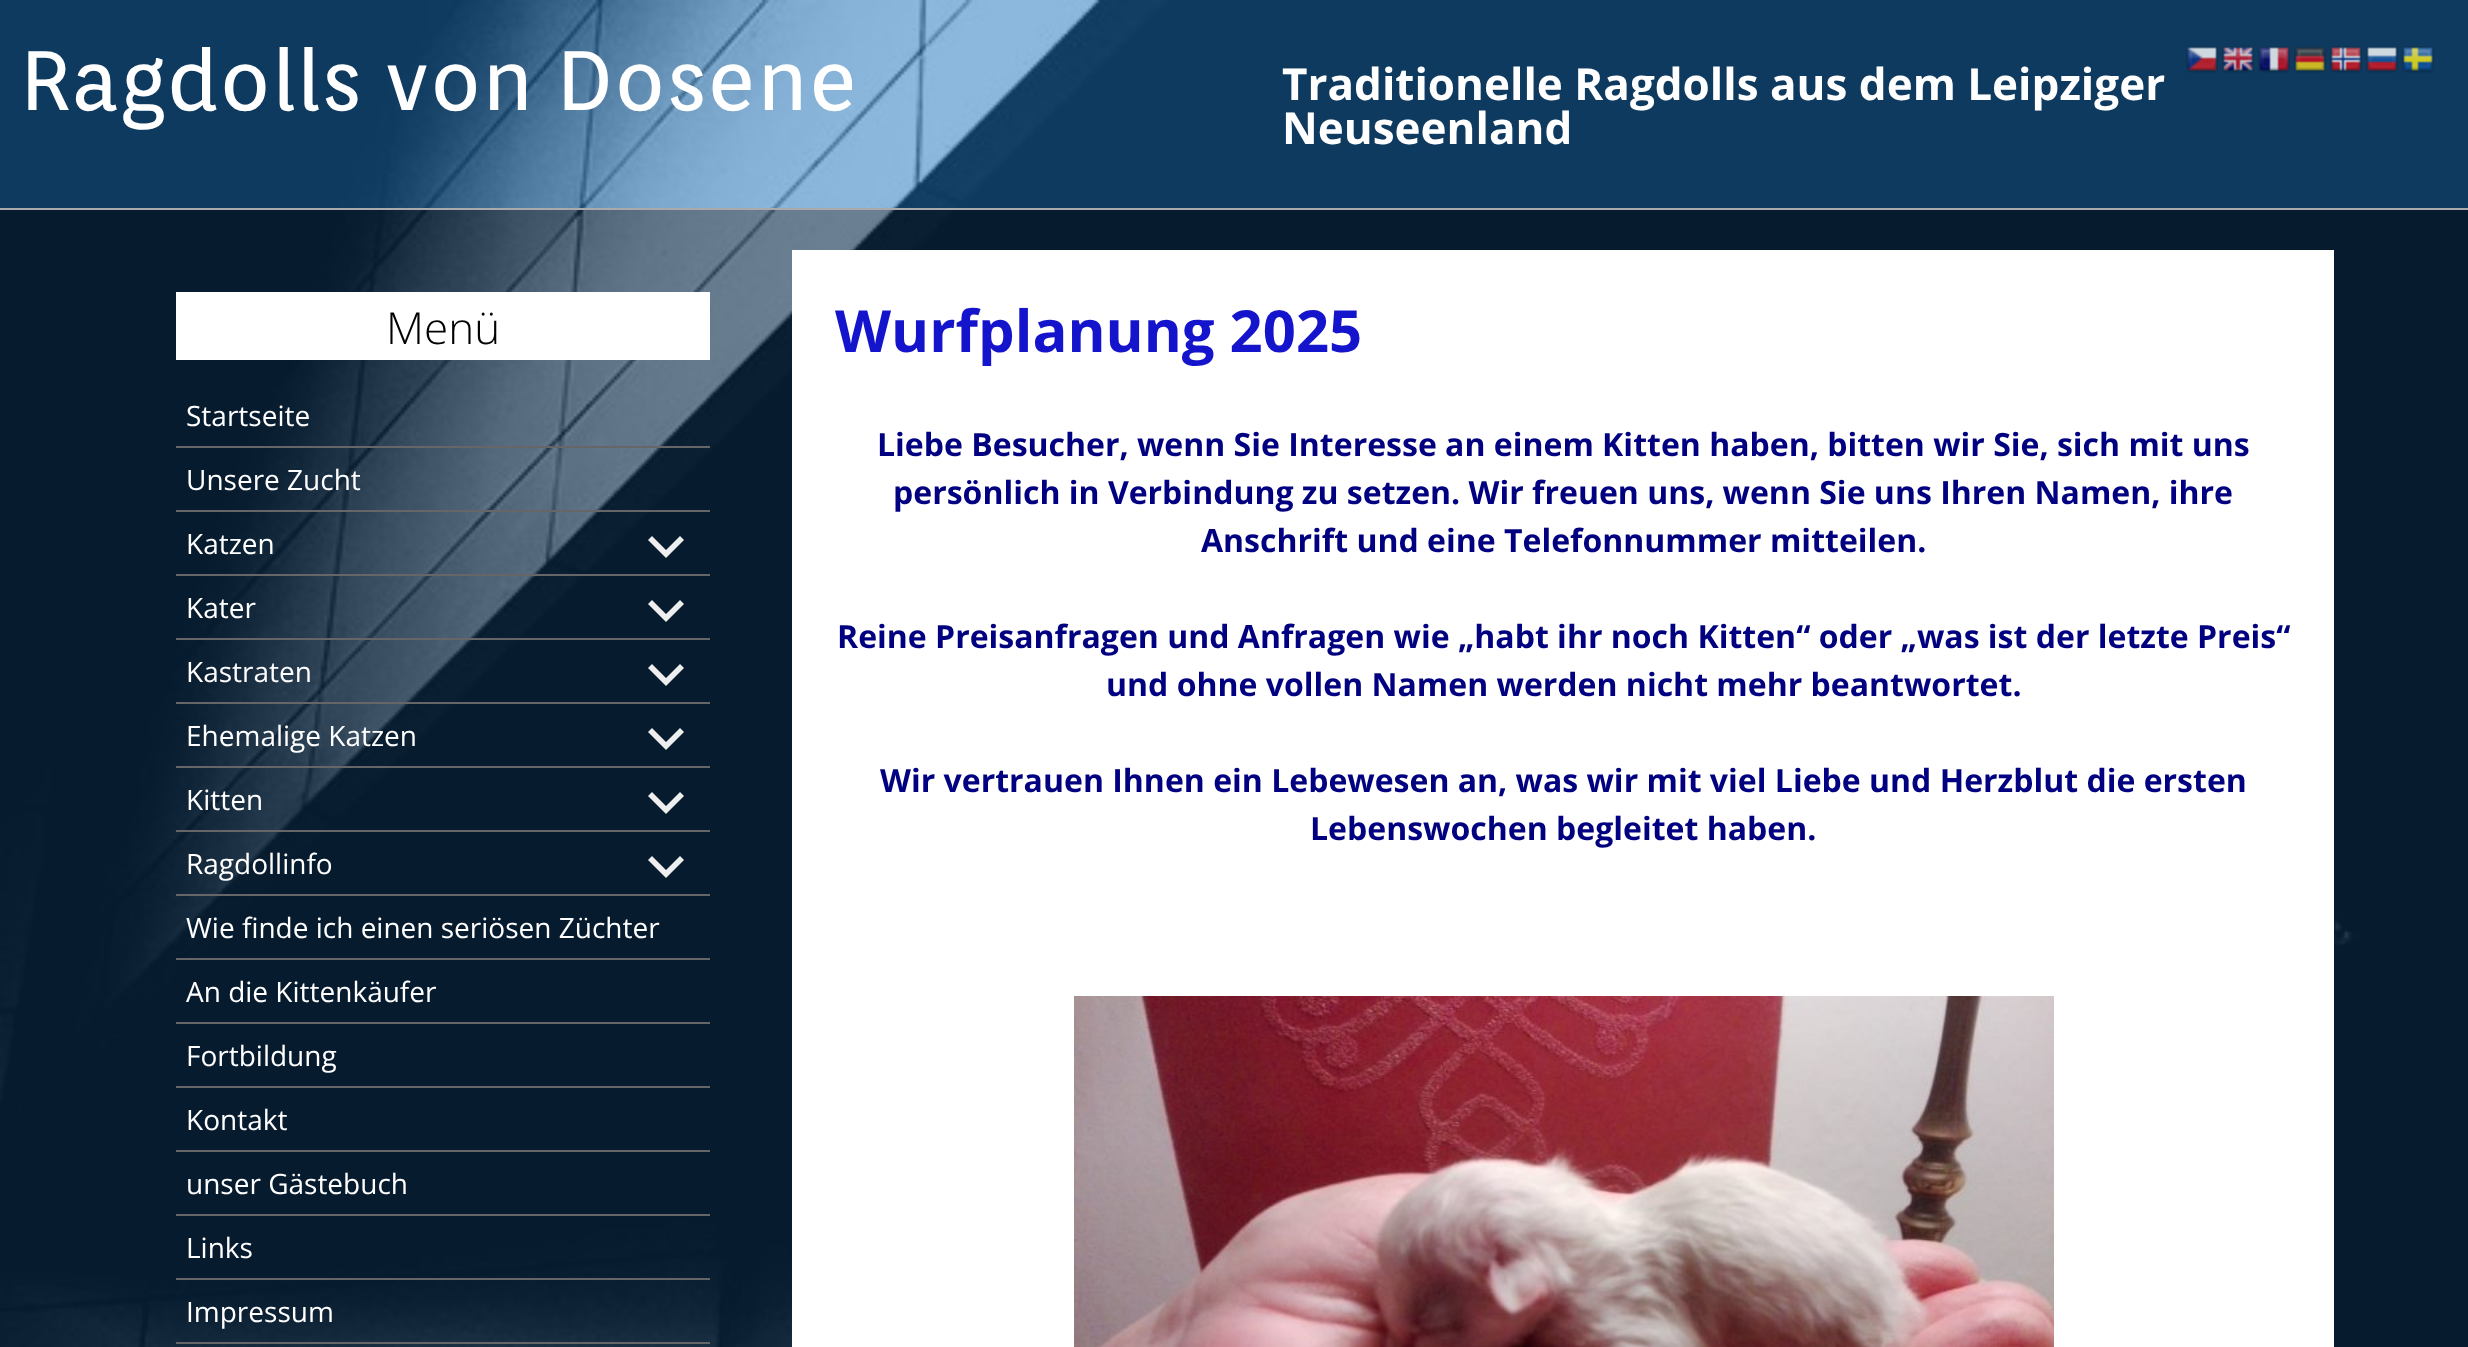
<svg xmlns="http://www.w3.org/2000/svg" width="2468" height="1347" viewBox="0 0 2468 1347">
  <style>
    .t1 { font: 84px Orienta; fill: #fff; }
    .t2 { font: bold 44px Open Sans; fill: #fff; }
    .t3 { font: 300 44px Open Sans; fill: #000; }
    .t4 { font: 28px Open Sans; fill: #fff; }
    .t5 { font: bold 58px Open Sans; fill: #1414cc; }
    .t6 { font: bold 32px Open Sans; fill: #000080; }
  </style>
  <rect width="100%" height="100%" fill="#fff"/>
  <image x="0" y="0" width="2468" height="1347" href="images/1.png"/>
  <rect x="0" y="0" width="2468" height="208" fill="#1e73be80"/>
  <text x="20" y="110" class="t1">Ragdolls von Dosene</text>
  <text x="1282" y="100" class="t2">Traditionelle Ragdolls aus dem Leipziger</text>
  <text x="1282" y="144" class="t2">Neuseenland</text>
  <rect x="0" y="208" width="2468" height="2" fill="#aaa"/>
  <rect x="0" y="210" width="2468" height="1137" fill="#0c2d4f99"/>
  <rect x="176" y="292" width="534" height="68" fill="#fff"/>
  <text x="386" y="344" class="t3">Menü</text>
  <rect x="176" y="446" width="534" height="2" fill="#666"/>
  <text x="186" y="426" class="t4">Startseite</text>
  <rect x="176" y="510" width="534" height="2" fill="#666"/>
  <text x="186" y="490" class="t4">Unsere Zucht</text>
  <rect x="176" y="574" width="534" height="2" fill="#666"/>
  <text x="186" y="554" class="t4">Katzen</text>
  <path d="M680 536L684 540L666 558L648 540L652 536L666 550Z" fill="#eee"/>
  <rect x="176" y="638" width="534" height="2" fill="#666"/>
  <text x="186" y="618" class="t4">Kater</text>
  <path d="M680 600L684 604L666 622L648 604L652 600L666 614Z" fill="#eee"/>
  <rect x="176" y="702" width="534" height="2" fill="#666"/>
  <text x="186" y="682" class="t4">Kastraten</text>
  <path d="M680 664L684 668L666 686L648 668L652 664L666 678Z" fill="#eee"/>
  <rect x="176" y="766" width="534" height="2" fill="#666"/>
  <text x="186" y="746" class="t4">Ehemalige Katzen</text>
  <path d="M680 728L684 732L666 750L648 732L652 728L666 742Z" fill="#eee"/>
  <rect x="176" y="830" width="534" height="2" fill="#666"/>
  <text x="186" y="810" class="t4">Kitten</text>
  <path d="M680 792L684 796L666 814L648 796L652 792L666 806Z" fill="#eee"/>
  <rect x="176" y="894" width="534" height="2" fill="#666"/>
  <text x="186" y="874" class="t4">Ragdollinfo</text>
  <path d="M680 856L684 860L666 878L648 860L652 856L666 870Z" fill="#eee"/>
  <rect x="176" y="958" width="534" height="2" fill="#666"/>
  <text x="186" y="938" class="t4">Wie finde ich einen seriösen Züchter</text>
  <rect x="176" y="1022" width="534" height="2" fill="#666"/>
  <text x="186" y="1002" class="t4">An die Kittenkäufer</text>
  <rect x="176" y="1086" width="534" height="2" fill="#666"/>
  <text x="186" y="1066" class="t4">Fortbildung</text>
  <rect x="176" y="1150" width="534" height="2" fill="#666"/>
  <text x="186" y="1130" class="t4">Kontakt</text>
  <rect x="176" y="1214" width="534" height="2" fill="#666"/>
  <text x="186" y="1194" class="t4">unser Gästebuch</text>
  <rect x="176" y="1278" width="534" height="2" fill="#666"/>
  <text x="186" y="1258" class="t4">Links</text>
  <rect x="176" y="1342" width="534" height="2" fill="#666"/>
  <text x="186" y="1322" class="t4">Impressum</text>
  <rect x="792" y="250" width="1542" height="1097" fill="#fff"/>
  <text x="835" y="352" class="t5">Wurfplanung 2025</text>
  <text x="877" y="456" class="t6">Liebe Besucher, wenn Sie Interesse an einem Kitten haben, bitten wir Sie, sich mit uns</text>
  <text x="893" y="504" class="t6">persönlich in Verbindung zu setzen. Wir freuen uns, wenn Sie uns Ihren Namen, ihre</text>
  <text x="1201" y="552" class="t6">Anschrift und eine Telefonnummer mitteilen.</text>
  <text x="837" y="648" class="t6">Reine Preisanfragen und Anfragen wie „habt ihr noch Kitten“ oder „was ist der letzte Preis“</text>
  <text x="1106" y="696" class="t6">und ohne vollen Namen werden nicht mehr beantwortet.</text>
  <text x="880" y="792" class="t6">Wir vertrauen Ihnen ein Lebewesen an, was wir mit viel Liebe und Herzblut die ersten</text>
  <text x="1310" y="840" class="t6">Lebenswochen begleitet haben.</text>
  <image x="1074" y="996" width="980" height="351" href="images/2.png"/>
  <image x="2186" y="46" width="32" height="27" href="images/3.png"/>
  <image x="2222" y="46" width="32" height="27" href="images/4.png"/>
  <image x="2258" y="46" width="32" height="27" href="images/5.png"/>
  <image x="2294" y="46" width="32" height="27" href="images/6.png"/>
  <image x="2330" y="46" width="32" height="27" href="images/7.png"/>
  <image x="2366" y="46" width="32" height="27" href="images/8.png"/>
  <image x="2402" y="46" width="32" height="27" href="images/9.png"/>
</svg>
